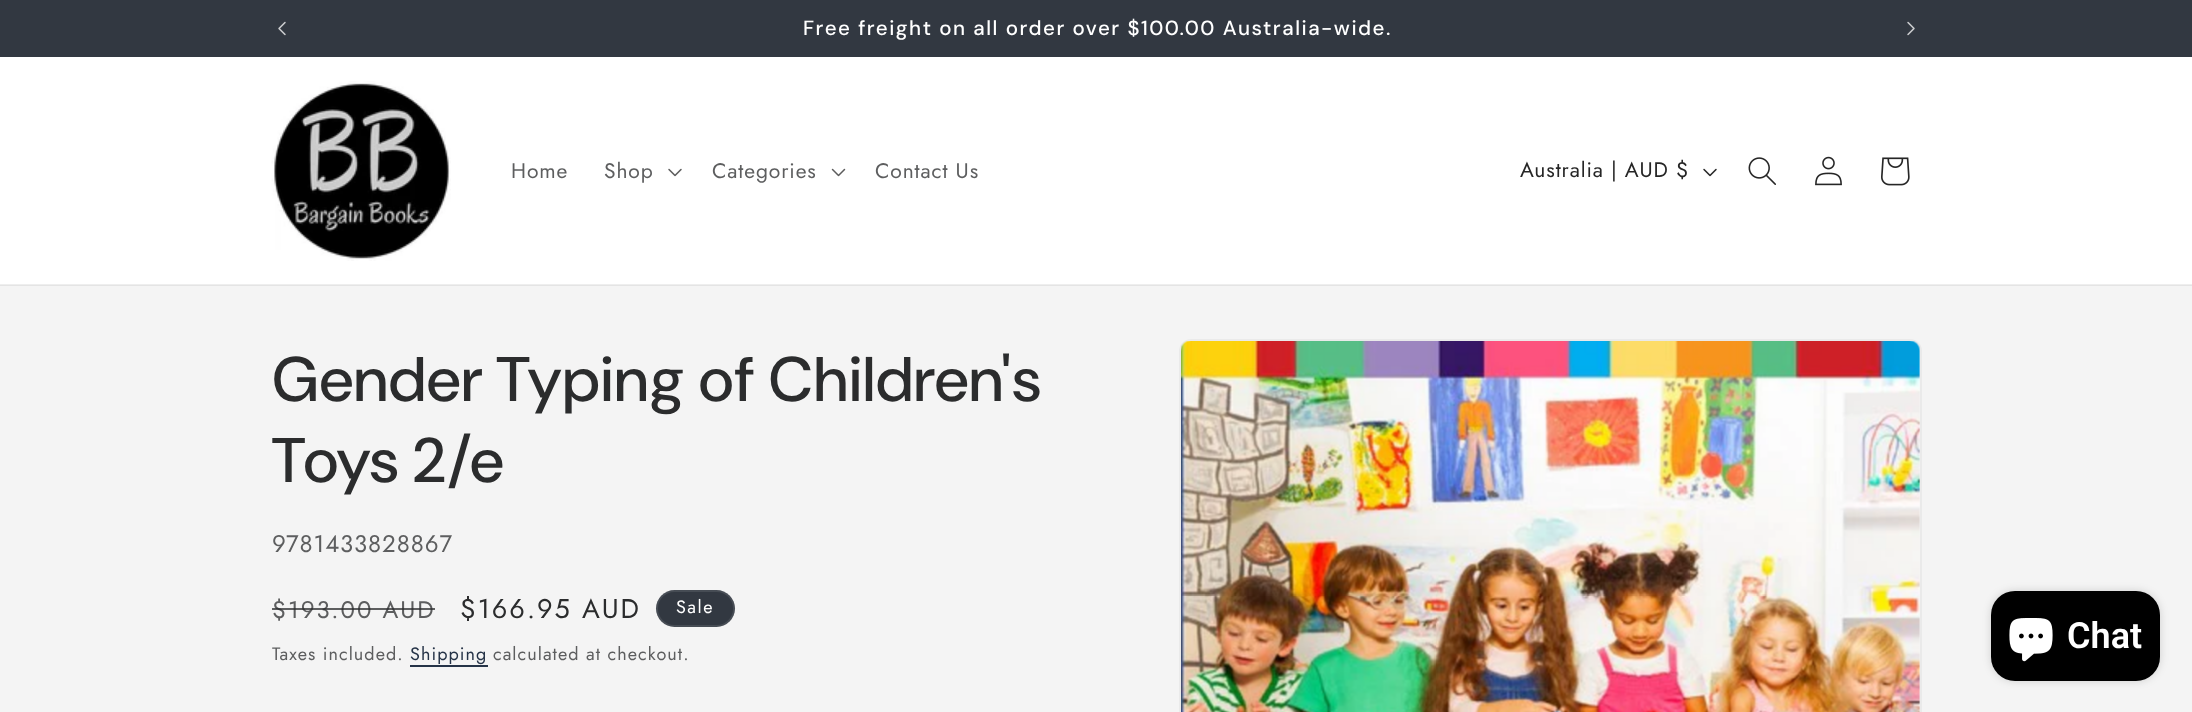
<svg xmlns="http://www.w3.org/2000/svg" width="2192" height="712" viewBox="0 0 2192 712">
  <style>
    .t1 { font: 500 20.5px 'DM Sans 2'; letter-spacing: 1.5px; fill: #fff; }
    .t2 { font: 21px Jost; letter-spacing: 0.9px; fill: #5d5e5f; }
    .t3 { font: 21px Jost; letter-spacing: 0.9px; fill: #262626; }
    .t4 { font: 500 63px DM Sans; letter-spacing: 0.95px; fill: #2b2c2d; }
    .t5 { font: 24px Jost; letter-spacing: 0.9px; fill: #5d5e5f; }
    .t6 { font: 24px Jost; letter-spacing: 2px; fill: #5d5e5f; }
    .t7 { font: 27px Jost; letter-spacing: 2px; fill: #2b2c2d; }
    .t8 { font: 18px Jost; letter-spacing: 1.5px; fill: #fff; }
    .t9 { font: 18px Jost; letter-spacing: 1.05px; fill: #5d5e5f; }
    .t10 { font: 18px Jost; letter-spacing: 1.05px; fill: #253347; }
    .t11 { font: 600 36px Roboto; fill: #fff; }
  </style>
  <rect width="100%" height="100%" fill="#f4f4f4"/>
  <rect x="0" y="285" width="2192" height="1" fill="#e4e4e4"/>
  <rect x="0" y="0" width="2192" height="57" fill="#323841"/>
  <image x="278" y="21" width="8" height="15" href="images/1.png"/>
  <text x="803" y="35" class="t1">Free freight on all order over $100.00 Australia-wide.</text>
  <image x="1907" y="21" width="8" height="15" href="images/2.png"/>
  <rect x="0" y="57" width="2192" height="227" fill="#fff"/>
  <rect x="0" y="284" width="2192" height="1" fill="#eee"/>
  <image x="271" y="81" width="180" height="180" href="images/3.png"/>
  <text x="511" y="178" class="t2">Home</text>
  <text x="604" y="178" class="t2">Shop</text>
  <image x="668" y="168" width="14" height="9" href="images/4.png"/>
  <text x="712" y="178" class="t2">Categories</text>
  <image x="831" y="168" width="15" height="9" href="images/5.png"/>
  <text x="875" y="178" class="t2">Contact Us</text>
  <text x="1520" y="177" class="t3">Australia | AUD $</text>
  <image x="1703" y="168" width="14" height="9" href="images/6.png"/>
  <image x="1748" y="157" width="28" height="28" href="images/7.png"/>
  <image x="1815" y="156" width="27" height="30" href="images/8.png"/>
  <image x="1881" y="157" width="29" height="29" href="images/9.png"/>
  <text x="272" y="401" class="t4">Gender Typing of Children's</text>
  <text x="272" y="482" class="t4">Toys 2/e</text>
  <text x="272" y="552" class="t5">9781433828867</text>
  <text x="272" y="618" class="t6">$193.00 AUD</text>
  <rect x="272" y="608" width="163" height="2" fill="#2b2c2dbf"/>
  <text x="460" y="618" class="t7">$166.95 AUD</text>
  <rect x="656" y="590" width="79" height="37" rx="18.5" fill="#323841"/>
  <rect x="657" y="591" width="77" height="35" rx="17.5" fill="none" stroke="#ffffff1a" stroke-width="2"/>
  <text x="676" y="613" class="t8">Sale</text>
  <text x="272" y="660" class="t9">Taxes included.</text>
  <text x="410" y="660" class="t10">Shipping</text>
  <rect x="410" y="665" width="78" height="2" fill="#253347"/>
  <text x="493" y="660" class="t9">calculated at checkout.</text>
  <rect x="1180" y="340" width="741" height="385" rx="11" fill="none" stroke="#eaeaea" stroke-width="2"/>
  <image x="1181" y="341" width="739" height="371" href="images/10.png"/>
  <rect x="1991" y="591" width="169" height="90" rx="24" fill="#00000026" filter="blur(4px)"/>
  <rect x="1991" y="591" width="169" height="90" rx="24" fill="#000"/>
  <image x="2009" y="618" width="44" height="44" href="images/11.png"/>
  <text x="2067" y="648" class="t11">Chat</text>
</svg>
